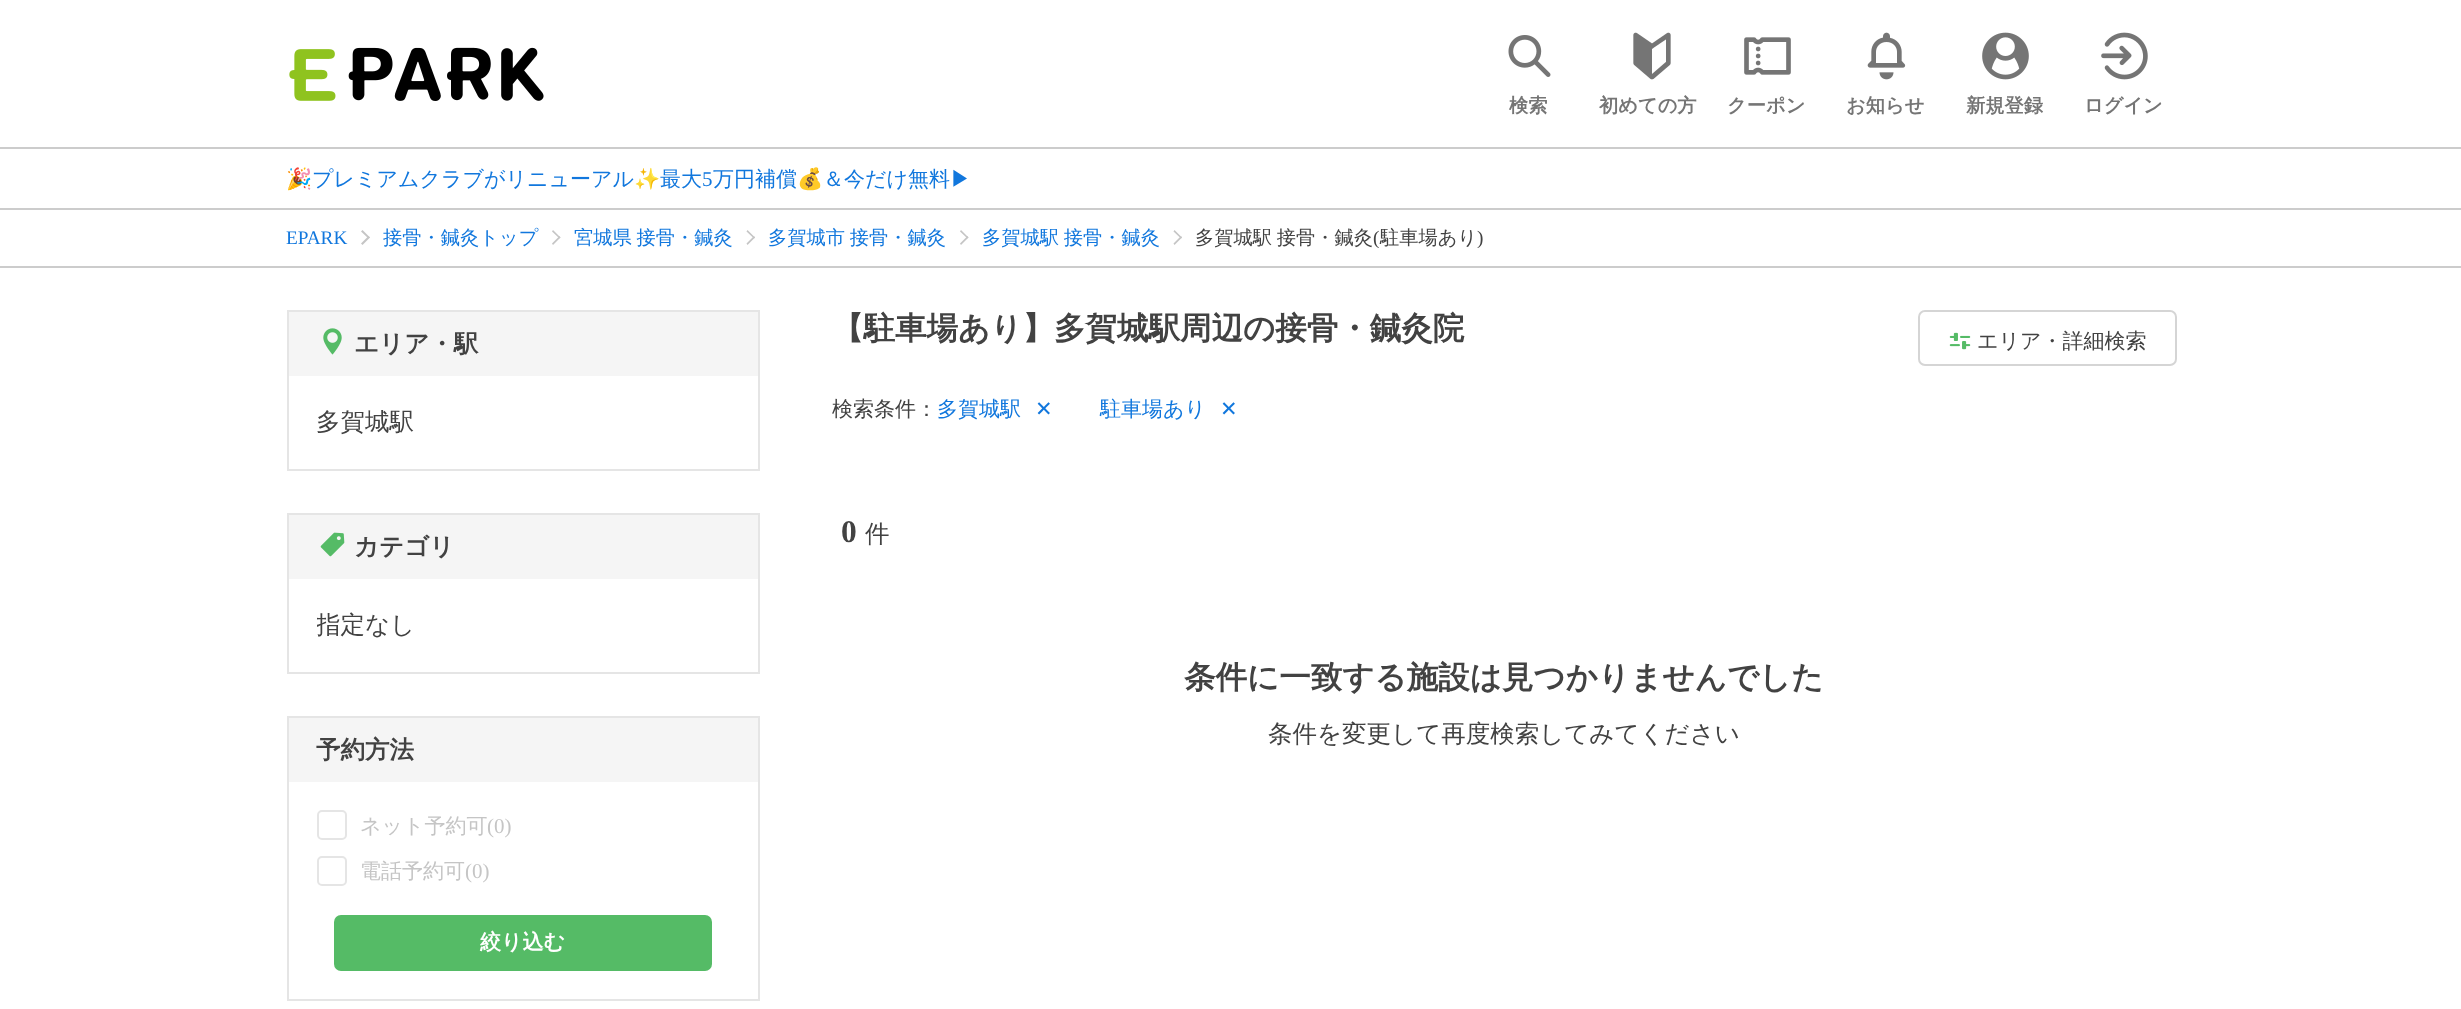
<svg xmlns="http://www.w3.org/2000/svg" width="2461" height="1009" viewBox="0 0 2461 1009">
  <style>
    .t1 { font: bold 19.25px WenQuanYi Zen Hei; fill: #757575; }
    .t2 { font: 21px Noto Color Emoji; fill: #17d; }
    .t3 { font: 500 21px WenQuanYi Zen Hei; fill: #17d; }
    .t4 { font: 21px Liberation Serif; fill: #17d; }
    .t5 { font: 19.25px Liberation Serif; fill: #17d; }
    .t6 { font: 500 19.25px WenQuanYi Zen Hei; fill: #17d; }
    .t7 { font: 500 19.25px WenQuanYi Zen Hei; fill: #424242; }
    .t8 { font: 19.25px Liberation Serif; fill: #424242; }
    .t9 { font: bold 24.5px WenQuanYi Zen Hei; fill: #424242; }
    .t10 { font: 500 24.5px WenQuanYi Zen Hei; fill: #424242; }
    .t11 { font: 500 21px WenQuanYi Zen Hei; fill: #c5c5c5; }
    .t12 { font: 21px Liberation Serif; fill: #c5c5c5; }
    .t13 { font: bold 21px WenQuanYi Zen Hei; fill: #fff; }
    .t14 { font: bold 31.5px WenQuanYi Zen Hei; fill: #424242; }
    .t15 { font: 500 21px WenQuanYi Zen Hei; fill: #424242; }
    .t16 { font: 21px DejaVu Sans; fill: #17d; }
    .t17 { font: bold 31.5px Liberation Serif; fill: #424242; }
  </style>
  <defs>
    <clipPath id="clip1"><rect x="317" y="607" width="413" height="37"/></clipPath>
  </defs>
  <rect width="100%" height="100%" fill="#fff"/>
  <rect x="0" y="208" width="2461" height="2" fill="#ccc"/>
  <image x="289" y="47" width="255" height="54" href="images/1.png"/>
  <image x="1508" y="35" width="43" height="42" href="images/2.png"/>
  <text x="1509" y="112" class="t1">検索</text>
  <image x="1633" y="32" width="38" height="48" href="images/3.png"/>
  <text x="1599" y="112" class="t1">初めての方</text>
  <image x="1744" y="37" width="47" height="38" href="images/4.png"/>
  <text x="1727" y="112" class="t1">クーポン</text>
  <image x="1867" y="32" width="39" height="48" href="images/5.png"/>
  <text x="1846" y="112" class="t1">お知らせ</text>
  <image x="1982" y="32" width="47" height="48" href="images/6.png"/>
  <text x="1966" y="112" class="t1">新規登録</text>
  <image x="2101" y="32" width="47" height="48" href="images/7.png"/>
  <text x="2084" y="112" class="t1">ログイン</text>
  <rect x="0" y="147" width="2461" height="2" fill="#ccc"/>
  <text x="286" y="186" class="t2">🎉</text>
  <text x="312" y="186" class="t3">プレミアムクラブがリニューアル</text>
  <text x="634" y="186" class="t2">✨</text>
  <text x="660" y="186" class="t3">最大</text>
  <text x="702" y="186" class="t4">5</text>
  <text x="713" y="186" class="t3">万円補償</text>
  <text x="797" y="186" class="t2">💰</text>
  <text x="823" y="186" class="t3">＆今だけ無料▶</text>
  <rect x="0" y="266" width="2461" height="2" fill="#ccc"/>
  <text x="286" y="244" class="t5">EPARK</text>
  <path d="M362.5 230L370 237.5L368.5 238.5L361 231.5Z" fill="#c5c5c5"/>
  <path d="M368.5 236L370 237.5L362.5 245L361 243.5Z" fill="#c5c5c5"/>
  <text x="383" y="244" class="t6">接骨・鍼灸トップ</text>
  <path d="M553 230L560.5 237.5L559.5 238.5L552 231.5Z" fill="#c5c5c5"/>
  <path d="M559.5 236L560.5 237.5L553 245L552 243.5Z" fill="#c5c5c5"/>
  <text x="574" y="244" word-spacing="-1" class="t6">宮城県 接骨・鍼灸</text>
  <path d="M747.5 230L755 237.5L754 238.5L746.5 231.5Z" fill="#c5c5c5"/>
  <path d="M754 236L755 237.5L747.5 245L746.5 243.5Z" fill="#c5c5c5"/>
  <text x="768" y="244" word-spacing="-1" class="t6">多賀城市 接骨・鍼灸</text>
  <path d="M961 230L968.5 237.5L967.5 238.5L960 231.5Z" fill="#c5c5c5"/>
  <path d="M967.5 236L968.5 237.5L961 245L960 243.5Z" fill="#c5c5c5"/>
  <text x="982" y="244" word-spacing="-1" class="t6">多賀城駅 接骨・鍼灸</text>
  <path d="M1174.5 230L1182 237.5L1181 238.5L1173.5 231.5Z" fill="#c5c5c5"/>
  <path d="M1181 236L1182 237.5L1174.5 245L1173.5 243.5Z" fill="#c5c5c5"/>
  <text x="1195" y="244" word-spacing="-1" class="t7">多賀城駅 接骨・鍼灸</text>
  <text x="1373" y="244" class="t8">(</text>
  <text x="1380" y="244" class="t7">駐車場あり</text>
  <text x="1477" y="244" class="t8">)</text>
  <rect x="288" y="311" width="471" height="159" fill="none" stroke="#e5e5e5" stroke-width="2"/>
  <rect x="289" y="312" width="469" height="64" fill="#f5f5f5"/>
  <image x="323" y="328" width="19" height="27" href="images/8.png"/>
  <text x="354" y="352" class="t9">エリア・駅</text>
  <text x="316" y="430" class="t10">多賀城駅</text>
  <rect x="288" y="514" width="471" height="159" fill="none" stroke="#e5e5e5" stroke-width="2"/>
  <rect x="289" y="515" width="469" height="64" fill="#f5f5f5"/>
  <image x="320" y="532" width="25" height="25" href="images/9.png"/>
  <text x="354" y="555" class="t9">カテゴリ</text>
  <g clip-path="url(#clip1)">
    <text x="316" y="633" class="t10">指定なし</text>
  </g>
  <rect x="288" y="717" width="471" height="283" fill="none" stroke="#e5e5e5" stroke-width="2"/>
  <rect x="289" y="718" width="469" height="64" fill="#f5f5f5"/>
  <text x="316" y="758" class="t9">予約方法</text>
  <rect x="318" y="811" width="28" height="28" rx="4" fill="none" stroke="#e5e5e5" stroke-width="2"/>
  <text x="360" y="833" class="t11">ネット予約可</text>
  <text x="487" y="833" class="t12">(0)</text>
  <rect x="318" y="857" width="28" height="28" rx="4" fill="none" stroke="#e5e5e5" stroke-width="2"/>
  <text x="360" y="878" class="t11">電話予約可</text>
  <text x="465" y="878" class="t12">(0)</text>
  <rect x="334" y="915" width="378" height="56" rx="7" fill="#5b6"/>
  <text x="480" y="949" class="t13">絞り込む</text>
  <text x="832" y="339" class="t14">【駐車場あり】多賀城駅周辺の接骨・鍼灸院</text>
  <rect x="1919" y="311" width="257" height="54" rx="6" fill="none" stroke="#d5d5d5" stroke-width="2"/>
  <image x="1949" y="332" width="22" height="18" href="images/10.png"/>
  <text x="1977" y="348" class="t15">エリア・詳細検索</text>
  <text x="832" y="416" class="t15">検索条件：</text>
  <text x="937" y="416" class="t3">多賀城駅</text>
  <text x="1035" y="416" class="t16">✕</text>
  <text x="1100" y="416" class="t3">駐車場あり</text>
  <text x="1220" y="416" class="t16">✕</text>
  <text x="841" y="542" class="t17">0</text>
  <text x="865" y="542" class="t10">件</text>
  <text x="1184" y="688" class="t14">条件に一致する施設は見つかりませんでした</text>
  <text x="1268" y="742" class="t10">条件を変更して再度検索してみてください</text>
</svg>
